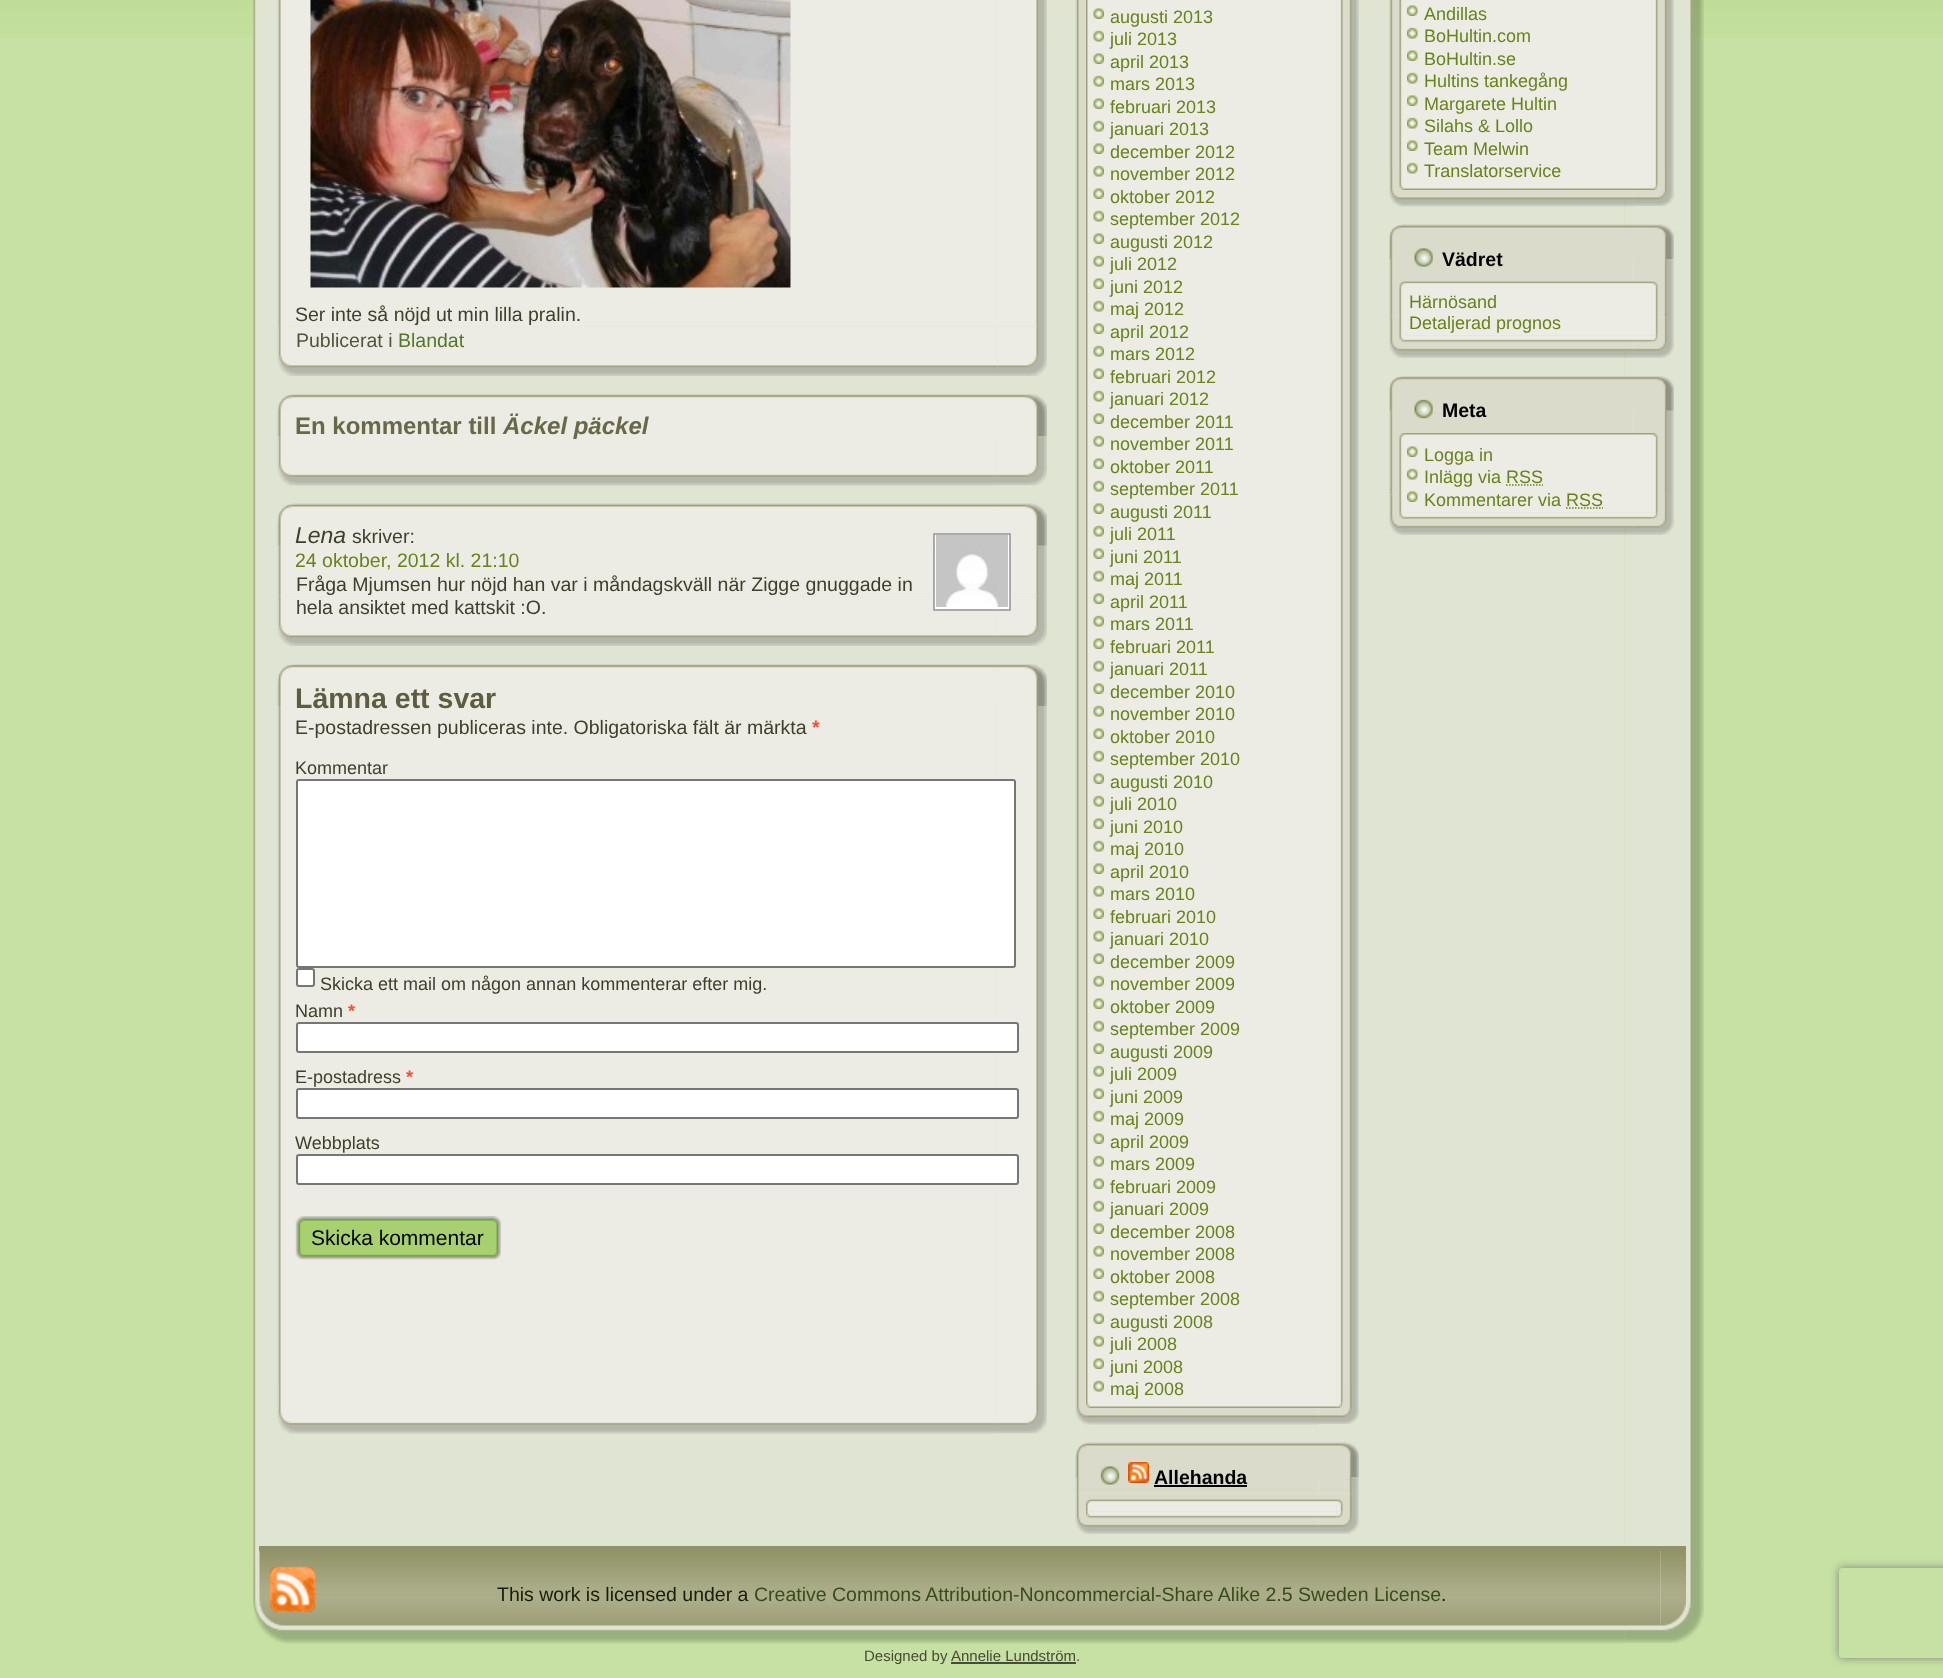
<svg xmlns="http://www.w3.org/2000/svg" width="1943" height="1678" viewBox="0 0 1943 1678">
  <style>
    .t1 { font: 19.5px Liberation Sans; fill: #3e3f2c; }
    .t2 { font: 19.5px Liberation Sans; fill: #53543b; }
    .t3 { font: 19.5px Liberation Sans; fill: #547727; }
    .t4 { font: bold 24px Liberation Sans; fill: #686949; }
    .t5 { font: italic bold 24px Liberation Sans; fill: #686949; }
    .t6 { font: italic 23px Liberation Sans; fill: #3e3f2c; }
    .t7 { font: 19.5px Liberation Sans; fill: #68821c; }
    .t8 { font: bold 28.5px Liberation Sans; fill: #5c5d41; }
    .t9 { font: bold 19.5px Liberation Sans; fill: #ff4b33; }
    .t10 { font: 18px Liberation Sans; fill: #3e3f2c; }
    .t11 { font: bold 18px Liberation Sans; fill: #ff4b33; }
    .t12 { font: 21px Liberation Sans; fill: #000; }
    .t13 { font: 18px Liberation Sans; fill: #68821c; }
    .t14 { font: bold 19.5px Liberation Sans; fill: #000; }
    .t15 { font: 19.5px Liberation Sans; fill: #181d06; }
    .t16 { font: 19.5px Liberation Sans; fill: #364d19; }
    .t17 { font: 15px Liberation Sans; fill: #4a4b34; }
  </style>
  <defs>
    <clipPath id="clip1"><path d="M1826 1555H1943V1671H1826ZM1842 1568H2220C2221.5 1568 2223 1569.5 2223 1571V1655C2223 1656.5 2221.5 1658 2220 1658H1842C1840.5 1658 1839 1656.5 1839 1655V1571C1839 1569.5 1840.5 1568 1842 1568Z" clip-rule="evenodd"/></clipPath>
  </defs>
  <rect width="100%" height="100%" fill="#c6e1a3"/>
  <image x="0" y="0" width="1943" height="38" href="images/1.png"/>
  <image x="253" y="0" width="1372" height="1564" href="images/2.png"/>
  <image x="1624" y="0" width="80" height="1564" href="images/3.png"/>
  <image x="277" y="326" width="721" height="50" href="images/7.png"/>
  <image x="277" y="0" width="721" height="327" href="images/4.png"/>
  <image x="997" y="0" width="50" height="327" href="images/5.png"/>
  <image x="310" y="0" width="481" height="288" href="images/6.png"/>
  <text x="295" y="321" class="t1">Ser inte så nöjd ut min lilla pralin.</text>
  <text x="296" y="347" class="t2">Publicerat i</text>
  <text x="398" y="347" class="t3">Blandat</text>
  <image x="997" y="326" width="50" height="50" href="images/8.png"/>
  <image x="277" y="394" width="721" height="92" href="images/9.png"/>
  <image x="277" y="394" width="721" height="42" href="images/10.png"/>
  <image x="997" y="394" width="50" height="92" href="images/11.png"/>
  <image x="997" y="394" width="50" height="42" href="images/12.png"/>
  <text x="295" y="434" class="t4">En kommentar till</text>
  <text x="503" y="434" class="t5">Äckel päckel</text>
  <image x="277" y="503" width="721" height="143" href="images/13.png"/>
  <image x="277" y="503" width="721" height="43" href="images/14.png"/>
  <image x="1011" y="545" width="36" height="52" href="images/19.png"/>
  <image x="997" y="503" width="50" height="143" href="images/15.png"/>
  <image x="997" y="503" width="50" height="43" href="images/16.png"/>
  <text x="295" y="543" class="t6">Lena</text>
  <text x="352" y="543" class="t1">skriver:</text>
  <rect x="934" y="534" width="76" height="76" fill="#fff" stroke="#aaa" stroke-width="2"/>
  <image x="936" y="535" width="72" height="72" href="images/17.png"/>
  <image x="277" y="545" width="656" height="52" href="images/18.png"/>
  <text x="295" y="567" class="t7">24 oktober, 2012 kl. 21:10</text>
  <text x="296" y="591" class="t1">Fråga Mjumsen hur nöjd han var i måndagskväll när Zigge gnuggade in</text>
  <text x="296" y="614" class="t1">hela ansiktet med kattskit :O.</text>
  <image x="277" y="664" width="721" height="770" href="images/20.png"/>
  <image x="277" y="664" width="721" height="42" href="images/10.png"/>
  <image x="277" y="706" width="721" height="678" href="images/24.png"/>
  <image x="997" y="706" width="50" height="678" href="images/25.png"/>
  <image x="997" y="664" width="50" height="770" href="images/21.png"/>
  <image x="997" y="664" width="50" height="42" href="images/12.png"/>
  <text x="295" y="708" class="t8">Lämna ett svar</text>
  <text x="295" y="734" class="t1">E-postadressen publiceras inte. Obligatoriska fält är märkta</text>
  <text x="812" y="734" class="t9">*</text>
  <text x="295" y="774" class="t10">Kommentar</text>
  <rect x="297" y="780" width="718" height="187" rx="2" fill="#fff" stroke="#767676" stroke-width="2"/>
  <rect x="297" y="969" width="17" height="17" rx="2" fill="#fff" stroke="#767676" stroke-width="2"/>
  <text x="320" y="990" class="t10">Skicka ett mail om någon annan kommenterar efter mig.</text>
  <text x="295" y="1017" class="t10">Namn</text>
  <text x="348" y="1017" class="t11">*</text>
  <rect x="297" y="1023" width="721" height="29" rx="2" fill="#fff" stroke="#767676" stroke-width="2"/>
  <text x="295" y="1083" class="t10">E-postadress</text>
  <text x="406" y="1083" class="t11">*</text>
  <rect x="297" y="1089" width="721" height="29" rx="2" fill="#fff" stroke="#767676" stroke-width="2"/>
  <text x="295" y="1149" class="t10">Webbplats</text>
  <rect x="297" y="1155" width="721" height="29" rx="2" fill="#fff" stroke="#767676" stroke-width="2"/>
  <image x="295" y="1216" width="194" height="44" href="images/22.png"/>
  <image x="489" y="1216" width="12" height="44" href="images/23.png"/>
  <text x="311" y="1245" class="t12">Skicka kommentar</text>
  <image x="1075" y="0" width="11" height="1384" href="images/26.png"/>
  <image x="1336" y="0" width="23" height="1384" href="images/33.png"/>
  <image x="1075" y="1384" width="244" height="41" href="images/34.png"/>
  <image x="1318" y="1384" width="41" height="40" href="images/35.png"/>
  <image x="1086" y="0" width="251" height="1402" href="images/27.png"/>
  <image x="1336" y="0" width="7" height="1402" href="images/28.png"/>
  <image x="1093" y="8" width="11" height="11" href="images/29.png"/>
  <text x="1110" y="23" class="t13">augusti 2013</text>
  <image x="1093" y="30" width="11" height="12" href="images/30.png"/>
  <text x="1110" y="45" class="t13">juli 2013</text>
  <image x="1093" y="53" width="11" height="11" href="images/29.png"/>
  <text x="1110" y="68" class="t13">april 2013</text>
  <image x="1093" y="75" width="11" height="12" href="images/30.png"/>
  <text x="1110" y="90" class="t13">mars 2013</text>
  <image x="1093" y="98" width="11" height="11" href="images/29.png"/>
  <text x="1110" y="113" class="t13">februari 2013</text>
  <image x="1093" y="120" width="11" height="12" href="images/30.png"/>
  <text x="1110" y="135" class="t13">januari 2013</text>
  <image x="1093" y="143" width="11" height="11" href="images/29.png"/>
  <text x="1110" y="158" class="t13">december 2012</text>
  <image x="1093" y="165" width="11" height="12" href="images/30.png"/>
  <text x="1110" y="180" class="t13">november 2012</text>
  <image x="1093" y="188" width="11" height="11" href="images/29.png"/>
  <text x="1110" y="203" class="t13">oktober 2012</text>
  <image x="1093" y="210" width="11" height="12" href="images/30.png"/>
  <text x="1110" y="225" class="t13">september 2012</text>
  <image x="1093" y="233" width="11" height="11" href="images/29.png"/>
  <text x="1110" y="248" class="t13">augusti 2012</text>
  <image x="1093" y="255" width="11" height="12" href="images/30.png"/>
  <text x="1110" y="270" class="t13">juli 2012</text>
  <image x="1093" y="278" width="11" height="11" href="images/29.png"/>
  <text x="1110" y="293" class="t13">juni 2012</text>
  <image x="1093" y="300" width="11" height="12" href="images/30.png"/>
  <text x="1110" y="315" class="t13">maj 2012</text>
  <image x="1093" y="323" width="11" height="11" href="images/29.png"/>
  <text x="1110" y="338" class="t13">april 2012</text>
  <image x="1093" y="345" width="11" height="12" href="images/30.png"/>
  <text x="1110" y="360" class="t13">mars 2012</text>
  <image x="1093" y="368" width="11" height="11" href="images/29.png"/>
  <text x="1110" y="383" class="t13">februari 2012</text>
  <image x="1093" y="390" width="11" height="12" href="images/30.png"/>
  <text x="1110" y="405" class="t13">januari 2012</text>
  <image x="1093" y="413" width="11" height="11" href="images/29.png"/>
  <text x="1110" y="428" class="t13">december 2011</text>
  <image x="1093" y="435" width="11" height="12" href="images/30.png"/>
  <text x="1110" y="450" class="t13">november 2011</text>
  <image x="1093" y="458" width="11" height="11" href="images/29.png"/>
  <text x="1110" y="473" class="t13">oktober 2011</text>
  <image x="1093" y="480" width="11" height="12" href="images/30.png"/>
  <text x="1110" y="495" class="t13">september 2011</text>
  <image x="1093" y="503" width="11" height="11" href="images/29.png"/>
  <text x="1110" y="518" class="t13">augusti 2011</text>
  <image x="1093" y="525" width="11" height="12" href="images/30.png"/>
  <text x="1110" y="540" class="t13">juli 2011</text>
  <image x="1093" y="548" width="11" height="11" href="images/29.png"/>
  <text x="1110" y="563" class="t13">juni 2011</text>
  <image x="1093" y="570" width="11" height="12" href="images/30.png"/>
  <text x="1110" y="585" class="t13">maj 2011</text>
  <image x="1093" y="593" width="11" height="11" href="images/29.png"/>
  <text x="1110" y="608" class="t13">april 2011</text>
  <image x="1093" y="615" width="11" height="12" href="images/30.png"/>
  <text x="1110" y="630" class="t13">mars 2011</text>
  <image x="1093" y="638" width="11" height="11" href="images/29.png"/>
  <text x="1110" y="653" class="t13">februari 2011</text>
  <image x="1093" y="660" width="11" height="12" href="images/30.png"/>
  <text x="1110" y="675" class="t13">januari 2011</text>
  <image x="1093" y="683" width="11" height="11" href="images/29.png"/>
  <text x="1110" y="698" class="t13">december 2010</text>
  <image x="1093" y="705" width="11" height="12" href="images/30.png"/>
  <text x="1110" y="720" class="t13">november 2010</text>
  <image x="1093" y="728" width="11" height="11" href="images/29.png"/>
  <text x="1110" y="743" class="t13">oktober 2010</text>
  <image x="1093" y="750" width="11" height="12" href="images/30.png"/>
  <text x="1110" y="765" class="t13">september 2010</text>
  <image x="1093" y="773" width="11" height="11" href="images/29.png"/>
  <text x="1110" y="788" class="t13">augusti 2010</text>
  <image x="1093" y="795" width="11" height="12" href="images/30.png"/>
  <text x="1110" y="810" class="t13">juli 2010</text>
  <image x="1093" y="818" width="11" height="11" href="images/29.png"/>
  <text x="1110" y="833" class="t13">juni 2010</text>
  <image x="1093" y="840" width="11" height="12" href="images/30.png"/>
  <text x="1110" y="855" class="t13">maj 2010</text>
  <image x="1093" y="863" width="11" height="11" href="images/29.png"/>
  <text x="1110" y="878" class="t13">april 2010</text>
  <image x="1093" y="885" width="11" height="12" href="images/30.png"/>
  <text x="1110" y="900" class="t13">mars 2010</text>
  <image x="1093" y="908" width="11" height="11" href="images/29.png"/>
  <text x="1110" y="923" class="t13">februari 2010</text>
  <image x="1093" y="930" width="11" height="12" href="images/30.png"/>
  <text x="1110" y="945" class="t13">januari 2010</text>
  <image x="1093" y="953" width="11" height="11" href="images/29.png"/>
  <text x="1110" y="968" class="t13">december 2009</text>
  <image x="1093" y="975" width="11" height="12" href="images/30.png"/>
  <text x="1110" y="990" class="t13">november 2009</text>
  <image x="1093" y="998" width="11" height="11" href="images/29.png"/>
  <text x="1110" y="1013" class="t13">oktober 2009</text>
  <image x="1093" y="1020" width="11" height="12" href="images/30.png"/>
  <text x="1110" y="1035" class="t13">september 2009</text>
  <image x="1093" y="1043" width="11" height="11" href="images/29.png"/>
  <text x="1110" y="1058" class="t13">augusti 2009</text>
  <image x="1093" y="1065" width="11" height="12" href="images/30.png"/>
  <text x="1110" y="1080" class="t13">juli 2009</text>
  <image x="1093" y="1088" width="11" height="11" href="images/29.png"/>
  <text x="1110" y="1103" class="t13">juni 2009</text>
  <image x="1093" y="1110" width="11" height="12" href="images/30.png"/>
  <text x="1110" y="1125" class="t13">maj 2009</text>
  <image x="1093" y="1133" width="11" height="11" href="images/29.png"/>
  <text x="1110" y="1148" class="t13">april 2009</text>
  <image x="1093" y="1155" width="11" height="12" href="images/30.png"/>
  <text x="1110" y="1170" class="t13">mars 2009</text>
  <image x="1093" y="1178" width="11" height="11" href="images/29.png"/>
  <text x="1110" y="1193" class="t13">februari 2009</text>
  <image x="1093" y="1200" width="11" height="12" href="images/30.png"/>
  <text x="1110" y="1215" class="t13">januari 2009</text>
  <image x="1093" y="1223" width="11" height="11" href="images/29.png"/>
  <text x="1110" y="1238" class="t13">december 2008</text>
  <image x="1093" y="1245" width="11" height="12" href="images/30.png"/>
  <text x="1110" y="1260" class="t13">november 2008</text>
  <image x="1093" y="1268" width="11" height="11" href="images/29.png"/>
  <text x="1110" y="1283" class="t13">oktober 2008</text>
  <image x="1093" y="1290" width="11" height="12" href="images/30.png"/>
  <text x="1110" y="1305" class="t13">september 2008</text>
  <image x="1093" y="1313" width="11" height="11" href="images/29.png"/>
  <text x="1110" y="1328" class="t13">augusti 2008</text>
  <image x="1093" y="1335" width="11" height="12" href="images/30.png"/>
  <text x="1110" y="1350" class="t13">juli 2008</text>
  <image x="1093" y="1358" width="11" height="11" href="images/29.png"/>
  <text x="1110" y="1373" class="t13">juni 2008</text>
  <image x="1093" y="1380" width="11" height="12" href="images/30.png"/>
  <text x="1110" y="1395" class="t13">maj 2008</text>
  <image x="1086" y="1402" width="251" height="6" href="images/31.png"/>
  <image x="1336" y="1402" width="7" height="6" href="images/32.png"/>
  <image x="1075" y="1442" width="244" height="92" href="images/36.png"/>
  <image x="1075" y="1442" width="244" height="35" href="images/37.png"/>
  <image x="1075" y="1477" width="244" height="17" href="images/42.png"/>
  <image x="1319" y="1477" width="40" height="17" href="images/43.png"/>
  <image x="1318" y="1442" width="41" height="92" href="images/38.png"/>
  <image x="1318" y="1442" width="41" height="35" href="images/39.png"/>
  <image x="1100" y="1466" width="20" height="19" href="images/40.png"/>
  <image x="1128" y="1462" width="21" height="21" href="images/41.png"/>
  <text x="1154" y="1484" class="t14">Allehanda</text>
  <rect x="1154" y="1485" width="93" height="2" fill="#000"/>
  <image x="1086" y="1499" width="251" height="19" href="images/44.png"/>
  <image x="1086" y="1499" width="251" height="7" href="images/45.png"/>
  <image x="1086" y="1505" width="251" height="7" href="images/48.png"/>
  <image x="1336" y="1505" width="7" height="7" href="images/49.png"/>
  <image x="1336" y="1499" width="7" height="19" href="images/46.png"/>
  <image x="1336" y="1499" width="7" height="7" href="images/47.png"/>
  <image x="1389" y="0" width="11" height="166" href="images/50.png"/>
  <image x="1651" y="0" width="23" height="166" href="images/56.png"/>
  <image x="1389" y="166" width="245" height="41" href="images/57.png"/>
  <image x="1633" y="166" width="41" height="40" href="images/35.png"/>
  <image x="1399" y="0" width="253" height="184" href="images/51.png"/>
  <image x="1651" y="0" width="7" height="184" href="images/52.png"/>
  <image x="1407" y="5" width="11" height="11" href="images/53.png"/>
  <text x="1424" y="20" class="t13">Andillas</text>
  <image x="1407" y="27" width="11" height="12" href="images/54.png"/>
  <text x="1424" y="42" class="t13">BoHultin.com</text>
  <image x="1407" y="50" width="11" height="11" href="images/53.png"/>
  <text x="1424" y="65" class="t13">BoHultin.se</text>
  <image x="1407" y="72" width="11" height="12" href="images/54.png"/>
  <text x="1424" y="87" class="t13">Hultins tankegång</text>
  <image x="1407" y="95" width="11" height="11" href="images/53.png"/>
  <text x="1424" y="110" class="t13">Margarete Hultin</text>
  <image x="1407" y="117" width="11" height="12" href="images/54.png"/>
  <text x="1424" y="132" class="t13">Silahs &amp; Lollo</text>
  <image x="1407" y="140" width="11" height="11" href="images/53.png"/>
  <text x="1424" y="155" class="t13">Team Melwin</text>
  <image x="1407" y="162" width="11" height="12" href="images/54.png"/>
  <text x="1424" y="177" class="t13">Translatorservice</text>
  <image x="1399" y="184" width="253" height="6" href="images/55.png"/>
  <image x="1651" y="184" width="7" height="6" href="images/32.png"/>
  <image x="1389" y="224" width="245" height="134" href="images/58.png"/>
  <image x="1389" y="224" width="245" height="35" href="images/59.png"/>
  <image x="1389" y="259" width="245" height="59" href="images/62.png"/>
  <image x="1634" y="259" width="40" height="59" href="images/63.png"/>
  <image x="1633" y="224" width="41" height="134" href="images/60.png"/>
  <image x="1633" y="224" width="41" height="35" href="images/39.png"/>
  <image x="1414" y="248" width="19" height="19" href="images/61.png"/>
  <text x="1442" y="266" class="t14">Vädret</text>
  <image x="1399" y="281" width="253" height="61" href="images/64.png"/>
  <image x="1399" y="281" width="253" height="7" href="images/65.png"/>
  <image x="1399" y="287" width="253" height="49" href="images/67.png"/>
  <image x="1651" y="287" width="7" height="49" href="images/68.png"/>
  <image x="1651" y="281" width="7" height="61" href="images/66.png"/>
  <image x="1651" y="281" width="7" height="7" href="images/47.png"/>
  <text x="1409" y="308" class="t13">Härnösand</text>
  <text x="1409" y="329" class="t13">Detaljerad prognos</text>
  <image x="1389" y="376" width="245" height="159" href="images/69.png"/>
  <image x="1389" y="376" width="245" height="35" href="images/70.png"/>
  <image x="1389" y="410" width="245" height="85" href="images/74.png"/>
  <image x="1634" y="410" width="40" height="85" href="images/75.png"/>
  <image x="1633" y="376" width="41" height="159" href="images/71.png"/>
  <image x="1633" y="376" width="41" height="35" href="images/72.png"/>
  <image x="1414" y="399" width="19" height="20" href="images/73.png"/>
  <text x="1442" y="417" class="t14">Meta</text>
  <image x="1399" y="433" width="253" height="86" href="images/76.png"/>
  <image x="1399" y="433" width="253" height="6" href="images/77.png"/>
  <image x="1399" y="439" width="253" height="74" href="images/80.png"/>
  <image x="1651" y="439" width="7" height="74" href="images/81.png"/>
  <image x="1651" y="433" width="7" height="86" href="images/78.png"/>
  <image x="1651" y="433" width="7" height="6" href="images/79.png"/>
  <image x="1407" y="446" width="11" height="11" href="images/53.png"/>
  <text x="1424" y="461" class="t13">Logga in</text>
  <image x="1407" y="468" width="11" height="12" href="images/54.png"/>
  <text x="1424" y="483" class="t13">Inlägg via RSS</text>
  <path d="M1506 485H1543" fill="none" stroke="#68821c" stroke-width="1.5" stroke-dasharray="1.5 1.5"/>
  <image x="1407" y="491" width="11" height="11" href="images/53.png"/>
  <text x="1424" y="506" class="t13">Kommentarer via RSS</text>
  <path d="M1566 508H1603" fill="none" stroke="#68821c" stroke-width="1.5" stroke-dasharray="1.5 1.5"/>
  <image x="253" y="1564" width="1372" height="80" href="images/85.png"/>
  <image x="1624" y="1564" width="80" height="79" href="images/86.png"/>
  <image x="259" y="1551" width="1402" height="75" href="images/82.png"/>
  <image x="1660" y="1551" width="26" height="75" href="images/83.png"/>
  <rect x="259" y="1546" width="1427" height="5" fill="#919366"/>
  <image x="269" y="1566" width="47" height="47" href="images/84.png"/>
  <text x="497" y="1601" class="t15">This work is licensed under a</text>
  <text x="754" y="1601" class="t16">Creative Commons Attribution-Noncommercial-Share Alike 2.5 Sweden License</text>
  <text x="1441" y="1601" class="t15">.</text>
  <text x="864" y="1661" class="t17">Designed by</text>
  <text x="951" y="1661" class="t17">Annelie Lundström.</text>
  <rect x="951" y="1662" width="125" height="2" fill="#4a4b34"/>
  <g clip-path="url(#clip1)">
    <rect x="1839" y="1568" width="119" height="90" rx="3" fill="#808080" filter="blur(4px)"/>
  </g>
</svg>
